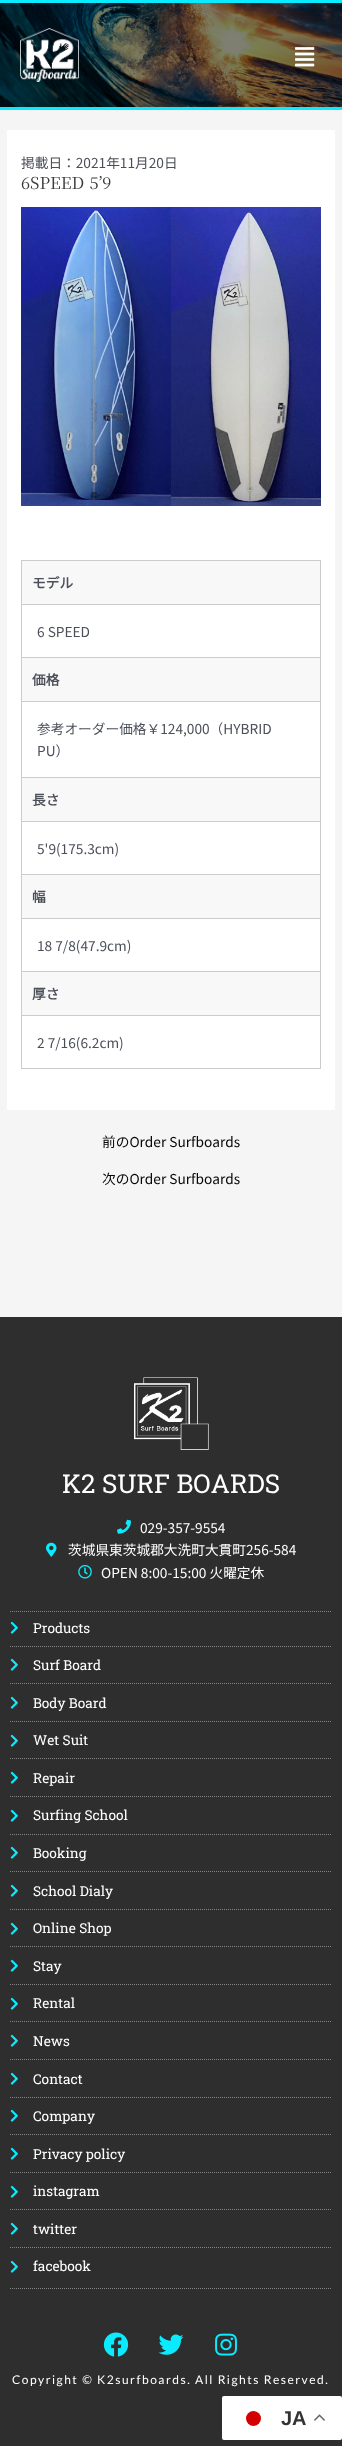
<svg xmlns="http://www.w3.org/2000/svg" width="342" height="2446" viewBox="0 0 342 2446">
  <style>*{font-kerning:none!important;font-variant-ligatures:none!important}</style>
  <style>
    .t1 { font: 100 13.7px Noto Sans JP; fill: #4b4f58; }
    .t2 { font: 16.5px Noto Serif JP; fill: #3a3a3a; }
    .t3 { font: bold 13.7px Noto Sans JP; fill: #4b4f58; }
    .t4 { font: 100 13.7px Noto Sans JP; fill: #060606; }
    .t5 { font: 26px Roboto Slab; fill: #fff; }
    .t6 { font: 100 13.7px Noto Sans JP; fill: #fff; }
    .t7 { font: 13.7px Roboto Slab; fill: #fff; }
    .t8 { font: 12px Lato; letter-spacing: 1.5px; fill: #fff; }
    .t9 { font: bold 20px Liberation Sans; fill: #333; }
  </style>
  <rect width="100%" height="100%" fill="#f5f5f5"/>
  <rect x="7" y="130" width="328" height="980" fill="#fff"/>
  <text x="21" y="168" class="t1">掲載日：2021年11月20日</text>
  <text x="21" y="189" word-spacing="1" class="t2">6SPEED 5’9</text>
  <image x="21" y="207" width="300" height="299" href="images/1.png"/>
  <rect x="22" y="561" width="298" height="454" fill="#f8f8f8"/>
  <rect x="21" y="560" width="300" height="1" fill="#ccc"/>
  <rect x="320" y="560" width="1" height="44" fill="#ccc"/>
  <rect x="21" y="560" width="1" height="44" fill="#ccc"/>
  <text x="32" y="588" class="t3">モデル</text>
  <rect x="22" y="605" width="298" height="52" fill="#fff"/>
  <rect x="21" y="604" width="300" height="1" fill="#ccc"/>
  <rect x="320" y="604" width="1" height="53" fill="#ccc"/>
  <rect x="21" y="604" width="1" height="53" fill="#ccc"/>
  <text x="37" y="637" class="t1">6 SPEED</text>
  <rect x="21" y="657" width="300" height="1" fill="#ccc"/>
  <rect x="320" y="657" width="1" height="44" fill="#ccc"/>
  <rect x="21" y="657" width="1" height="44" fill="#ccc"/>
  <text x="32" y="685" class="t3">価格</text>
  <rect x="22" y="702" width="298" height="75" fill="#fff"/>
  <rect x="21" y="701" width="300" height="1" fill="#ccc"/>
  <rect x="320" y="701" width="1" height="76" fill="#ccc"/>
  <rect x="21" y="701" width="1" height="76" fill="#ccc"/>
  <text x="37" y="734" class="t1">参考オーダー価格￥124,000（HYBRID</text>
  <text x="37" y="756" class="t1">PU）</text>
  <rect x="21" y="777" width="300" height="1" fill="#ccc"/>
  <rect x="320" y="777" width="1" height="44" fill="#ccc"/>
  <rect x="21" y="777" width="1" height="44" fill="#ccc"/>
  <text x="32" y="805" class="t3">長さ</text>
  <rect x="22" y="822" width="298" height="52" fill="#fff"/>
  <rect x="21" y="821" width="300" height="1" fill="#ccc"/>
  <rect x="320" y="821" width="1" height="53" fill="#ccc"/>
  <rect x="21" y="821" width="1" height="53" fill="#ccc"/>
  <text x="37" y="854" class="t1">5'9(175.3cm)</text>
  <rect x="21" y="874" width="300" height="1" fill="#ccc"/>
  <rect x="320" y="874" width="1" height="44" fill="#ccc"/>
  <rect x="21" y="874" width="1" height="44" fill="#ccc"/>
  <text x="32" y="902" class="t3">幅</text>
  <rect x="22" y="919" width="298" height="52" fill="#fff"/>
  <rect x="21" y="918" width="300" height="1" fill="#ccc"/>
  <rect x="320" y="918" width="1" height="53" fill="#ccc"/>
  <rect x="21" y="918" width="1" height="53" fill="#ccc"/>
  <text x="37" y="951" class="t1">18 7/8(47.9cm)</text>
  <rect x="21" y="971" width="300" height="1" fill="#ccc"/>
  <rect x="320" y="971" width="1" height="44" fill="#ccc"/>
  <rect x="21" y="971" width="1" height="44" fill="#ccc"/>
  <text x="32" y="999" class="t3">厚さ</text>
  <rect x="21.5" y="1015.5" width="299" height="53" fill="none" stroke="#ccc"/>
  <text x="37" y="1048" class="t1">2 7/16(6.2cm)</text>
  <text x="102" y="1147" class="t4">前のOrder Surfboards</text>
  <text x="102" y="1184" class="t4">次のOrder Surfboards</text>
  <rect x="0" y="1317" width="342" height="1129" fill="#2e2e2e"/>
  <image x="134" y="1377" width="75" height="73" href="images/2.png"/>
  <text x="62" y="1493" class="t5">K2 SURF BOARDS</text>
  <image x="117" y="1519" width="14" height="15" href="images/3.png"/>
  <text x="140" y="1533" class="t6">029-357-9554</text>
  <image x="46" y="1542" width="11" height="15" href="images/4.png"/>
  <text x="68" y="1555" class="t6">茨城県東茨城郡大洗町大貫町256-584</text>
  <image x="78" y="1565" width="14" height="14" href="images/5.png"/>
  <text x="101" y="1578" class="t6">OPEN 8:00-15:00 火曜定休</text>
  <path d="M10 1611.5H332" fill="none" stroke="#848484" stroke-dasharray="1 1"/>
  <path d="M10 2288.5H332" fill="none" stroke="#848484" stroke-dasharray="1 1"/>
  <image x="10" y="1621" width="8" height="13" href="images/6.png"/>
  <text x="33" y="1633" class="t7">Products</text>
  <path d="M10 1646.5H332" fill="none" stroke="#848484" stroke-dasharray="1 1"/>
  <image x="10" y="1658" width="8" height="13" href="images/6.png"/>
  <text x="33" y="1670" class="t7">Surf Board</text>
  <path d="M10 1683.5H332" fill="none" stroke="#848484" stroke-dasharray="1 1"/>
  <image x="10" y="1696" width="8" height="13" href="images/6.png"/>
  <text x="33" y="1708" class="t7">Body Board</text>
  <path d="M10 1721.5H332" fill="none" stroke="#848484" stroke-dasharray="1 1"/>
  <image x="10" y="1734" width="8" height="13" href="images/6.png"/>
  <text x="33" y="1745" class="t7">Wet Suit</text>
  <path d="M10 1758.5H332" fill="none" stroke="#848484" stroke-dasharray="1 1"/>
  <image x="10" y="1771" width="8" height="13" href="images/6.png"/>
  <text x="33" y="1783" class="t7">Repair</text>
  <path d="M10 1796.5H332" fill="none" stroke="#848484" stroke-dasharray="1 1"/>
  <image x="10" y="1809" width="8" height="13" href="images/6.png"/>
  <text x="33" y="1820" class="t7">Surfing School</text>
  <path d="M10 1834.5H332" fill="none" stroke="#848484" stroke-dasharray="1 1"/>
  <image x="10" y="1846" width="8" height="13" href="images/6.png"/>
  <text x="33" y="1858" class="t7">Booking</text>
  <path d="M10 1871.5H332" fill="none" stroke="#848484" stroke-dasharray="1 1"/>
  <image x="10" y="1884" width="8" height="13" href="images/6.png"/>
  <text x="33" y="1896" class="t7">School Dialy</text>
  <path d="M10 1909.5H332" fill="none" stroke="#848484" stroke-dasharray="1 1"/>
  <image x="10" y="1922" width="8" height="13" href="images/6.png"/>
  <text x="33" y="1933" class="t7">Online Shop</text>
  <path d="M10 1946.5H332" fill="none" stroke="#848484" stroke-dasharray="1 1"/>
  <image x="10" y="1959" width="8" height="13" href="images/6.png"/>
  <text x="33" y="1971" class="t7">Stay</text>
  <path d="M10 1984.5H332" fill="none" stroke="#848484" stroke-dasharray="1 1"/>
  <image x="10" y="1997" width="8" height="13" href="images/6.png"/>
  <text x="33" y="2008" class="t7">Rental</text>
  <path d="M10 2021.5H332" fill="none" stroke="#848484" stroke-dasharray="1 1"/>
  <image x="10" y="2034" width="8" height="13" href="images/6.png"/>
  <text x="33" y="2046" class="t7">News</text>
  <path d="M10 2059.5H332" fill="none" stroke="#848484" stroke-dasharray="1 1"/>
  <image x="10" y="2072" width="8" height="13" href="images/6.png"/>
  <text x="33" y="2084" class="t7">Contact</text>
  <path d="M10 2097.5H332" fill="none" stroke="#848484" stroke-dasharray="1 1"/>
  <image x="10" y="2109" width="8" height="13" href="images/6.png"/>
  <text x="33" y="2121" class="t7">Company</text>
  <path d="M10 2134.5H332" fill="none" stroke="#848484" stroke-dasharray="1 1"/>
  <image x="10" y="2147" width="8" height="13" href="images/6.png"/>
  <text x="33" y="2159" class="t7">Privacy policy</text>
  <path d="M10 2172.5H332" fill="none" stroke="#848484" stroke-dasharray="1 1"/>
  <image x="10" y="2185" width="8" height="13" href="images/6.png"/>
  <text x="33" y="2196" class="t7">instagram</text>
  <path d="M10 2209.5H332" fill="none" stroke="#848484" stroke-dasharray="1 1"/>
  <image x="10" y="2222" width="8" height="13" href="images/6.png"/>
  <text x="33" y="2234" class="t7">twitter</text>
  <path d="M10 2247.5H332" fill="none" stroke="#848484" stroke-dasharray="1 1"/>
  <image x="10" y="2260" width="8" height="13" href="images/6.png"/>
  <text x="33" y="2271" class="t7">facebook</text>
  <image x="103" y="2332" width="26" height="25" href="images/7.png"/>
  <image x="158" y="2334" width="26" height="21" href="images/8.png"/>
  <image x="215" y="2333" width="22" height="23" href="images/9.png"/>
  <text x="12" y="2384" class="t8">Copyright © K2surfboards. All Rights Reserved.</text>
  <image x="0" y="3" width="342" height="104" href="images/10.png"/>
  <rect x="0" y="0" width="342" height="3" fill="#0bebff"/>
  <rect x="0" y="107" width="342" height="3" fill="#0bebff"/>
  <image x="20" y="28" width="59" height="54" href="images/11.png"/>
  <image x="295" y="47" width="20" height="20" href="images/12.png"/>
  <rect x="222" y="2396" width="120" height="44" rx="2" fill="#fff"/>
  <circle cx="253.5" cy="2418.5" r="7.5" fill="#d30000"/>
  <text x="281" y="2425" class="t9">JA</text>
  <image x="314" y="2414" width="11" height="7" href="images/13.png"/>
</svg>
